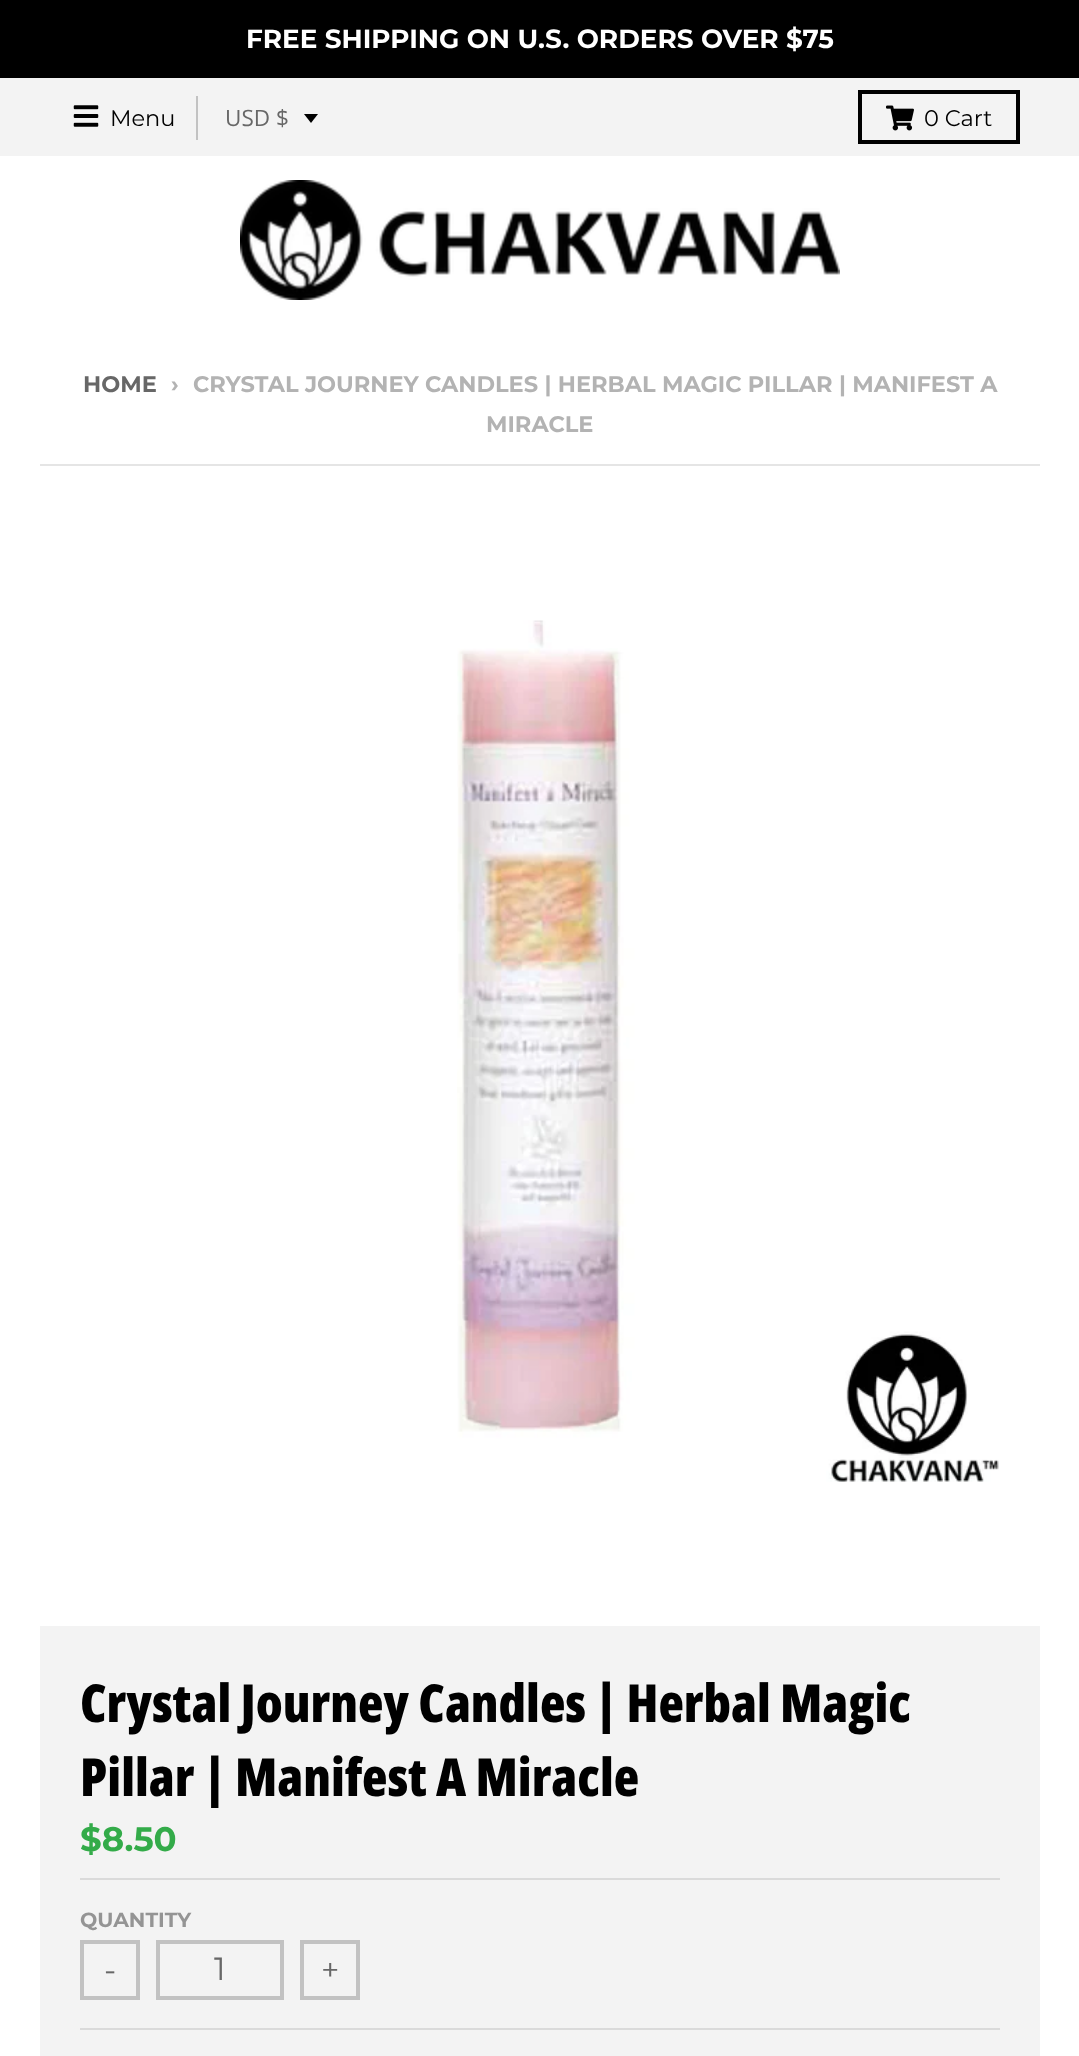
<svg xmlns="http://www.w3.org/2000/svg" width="1079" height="2056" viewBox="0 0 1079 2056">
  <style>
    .t1 { font: bold 26.25px Montserrat; fill: #fff; }
    .t2 { font: 22.5px Montserrat; fill: #000; }
    .t3 { font: 22.5px Open Sans; fill: #676767; }
    .t4 { font: bold 22.5px Montserrat; fill: #676767; }
    .t5 { font: bold 22.5px Montserrat; fill: #b3b3b3; }
    .t6 { font: 800 52.5px Open Sans Condensed; fill: #000; }
    .t7 { font: bold 34px Montserrat; fill: #33ab49; }
    .t8 { font: bold 20.5px Montserrat; fill: #949494; }
    .t9 { font: 32px Montserrat; fill: #676767; }
  </style>
  <rect width="100%" height="100%" fill="#fff"/>
  <rect x="0" y="0" width="1079" height="78" fill="#000"/>
  <text x="246" y="48" class="t1">FREE SHIPPING ON U.S. ORDERS OVER $75</text>
  <rect x="0" y="78" width="1079" height="78" fill="#f3f3f3"/>
  <image x="73" y="105" width="26" height="22" href="images/1.png"/>
  <text x="110" y="126" class="t2">Menu</text>
  <rect x="196" y="96" width="2" height="44" fill="#c2c2c2"/>
  <path d="M304 114L311 123L318 114Z" fill="#000"/>
  <text x="225" y="126" class="t3">USD $</text>
  <rect x="860" y="92" width="158" height="50" fill="none" stroke="#000" stroke-width="4"/>
  <image x="886" y="105" width="28" height="26" href="images/2.png"/>
  <text x="924" y="126" class="t2">0 Cart</text>
  <image x="240" y="180" width="600" height="120" href="images/3.png"/>
  <text x="83" y="392" class="t4">HOME</text>
  <text x="171" y="392" class="t5">›</text>
  <text x="193" y="392" class="t5">CRYSTAL JOURNEY CANDLES | HERBAL MAGIC PILLAR | MANIFEST A</text>
  <text x="486" y="432" class="t5">MIRACLE</text>
  <rect x="40" y="464" width="1000" height="2" fill="#e5e5e5"/>
  <image x="457" y="620" width="542" height="862" href="images/4.png"/>
  <rect x="40" y="1626" width="1000" height="430" fill="#f3f3f3"/>
  <text x="80" y="1722" class="t6">Crystal Journey Candles | Herbal Magic</text>
  <text x="80" y="1796" class="t6">Pillar | Manifest A Miracle</text>
  <rect x="80" y="1878" width="920" height="2" fill="#dadada"/>
  <text x="80" y="1851" class="t7">$8.50</text>
  <rect x="80" y="2028" width="920" height="2" fill="#dadada"/>
  <text x="80" y="1927" class="t8">QUANTITY</text>
  <rect x="82" y="1942" width="56" height="56" fill="none" stroke="#c2c2c2" stroke-width="4"/>
  <text x="104" y="1981" class="t9">-</text>
  <rect x="158" y="1942" width="124" height="56" fill="none" stroke="#c2c2c2" stroke-width="4"/>
  <text x="214" y="1980" class="t9">1</text>
  <rect x="302" y="1942" width="56" height="56" fill="none" stroke="#c2c2c2" stroke-width="4"/>
  <text x="321" y="1981" class="t9">+</text>
</svg>
